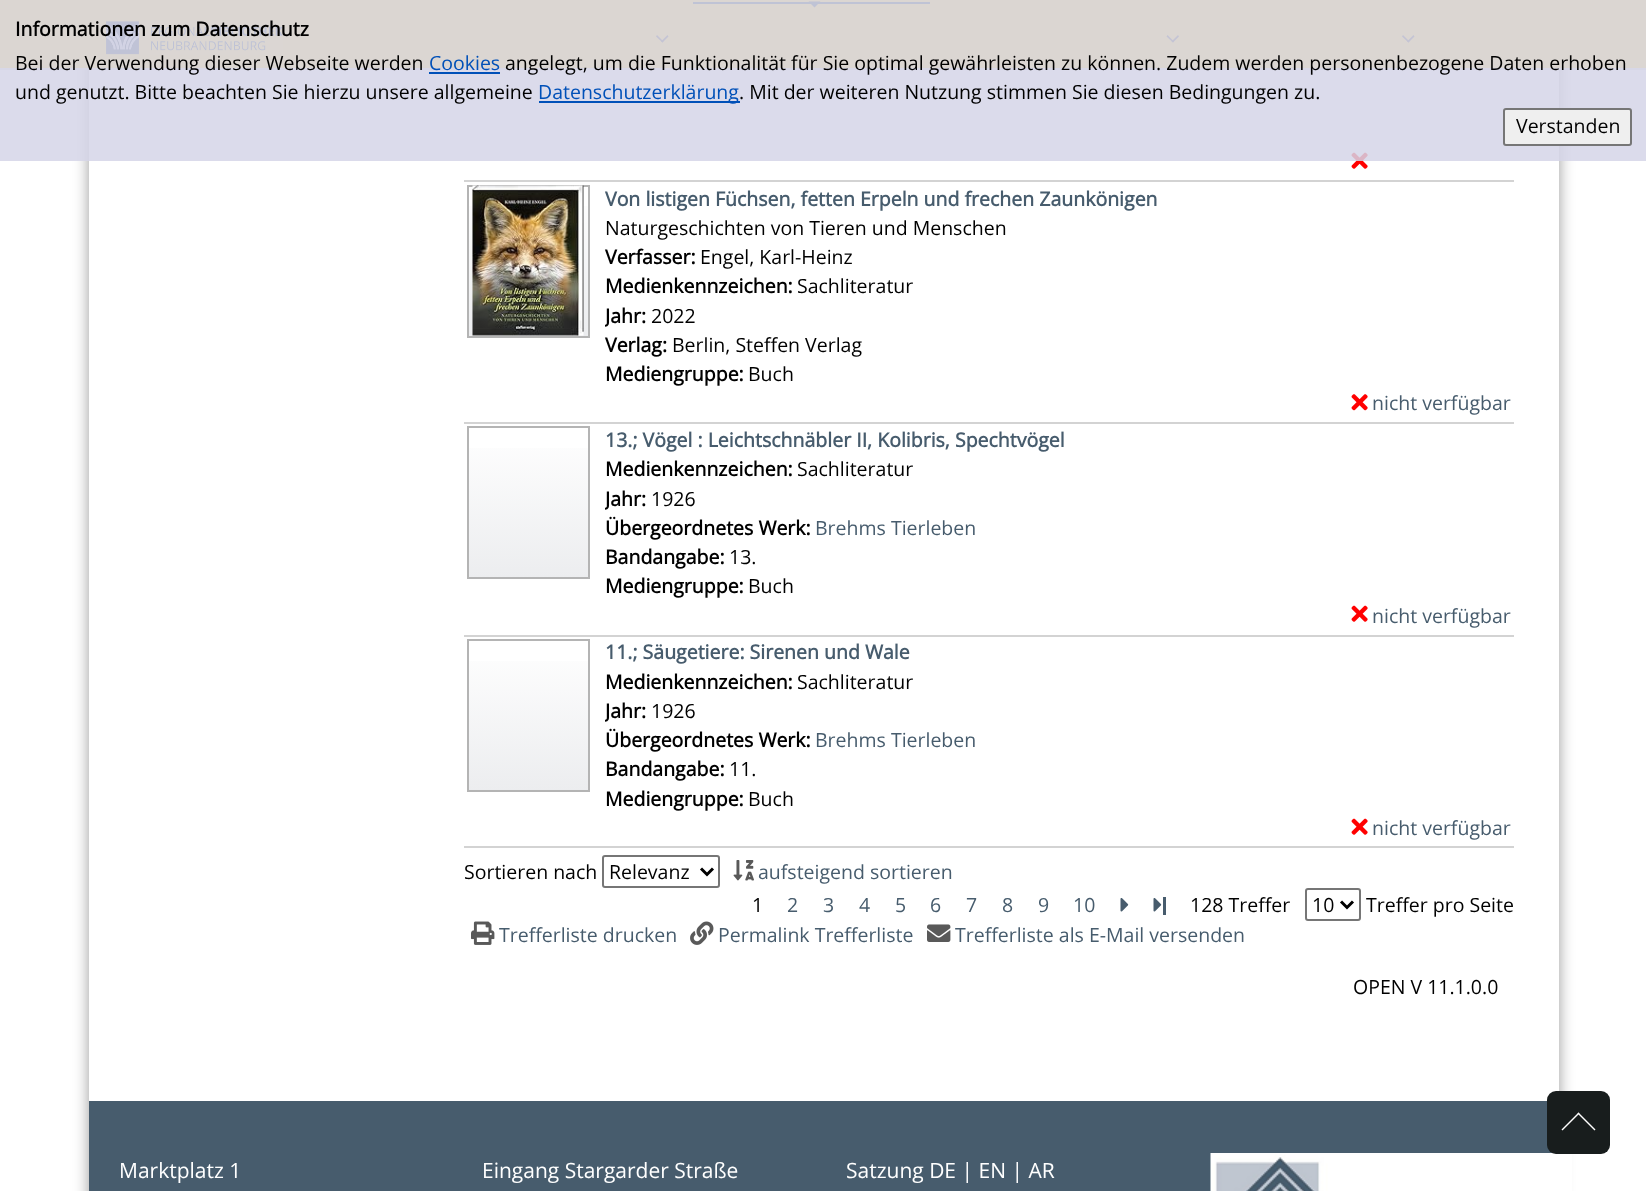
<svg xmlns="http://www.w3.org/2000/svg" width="1646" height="1191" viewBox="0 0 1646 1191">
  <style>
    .t1 { font: bold 19.5px Open Sans; fill: #000; }
    .t2 { font: 19.5px Open Sans; fill: #000; }
    .t3 { font: 19.5px Open Sans; fill: #0050b8; }
    .t4 { font: bold 19.5px Open Sans; fill: #475c6d; }
    .t5 { font: 19.5px Open Sans; fill: #475c6d; }
    .t6 { font: 21px Open Sans; fill: #fff; }
  </style>
  <defs>
    <linearGradient id="g1" gradientUnits="userSpaceOnUse" x1="468" y1="186" x2="468" y2="336"><stop offset="0" stop-color="#fff"/><stop offset="1" stop-color="#ecedef"/></linearGradient>
    <clipPath id="clip1"><rect x="605" y="302" width="906" height="30"/></clipPath>
    <linearGradient id="g2" gradientUnits="userSpaceOnUse" x1="468" y1="428" x2="468" y2="578"><stop offset="0" stop-color="#fff"/><stop offset="1" stop-color="#ecedef"/></linearGradient>
    <clipPath id="clip2"><rect x="605" y="485" width="906" height="30"/></clipPath>
    <linearGradient id="g3" gradientUnits="userSpaceOnUse" x1="468" y1="641" x2="468" y2="791"><stop offset="0" stop-color="#fff"/><stop offset="1" stop-color="#ecedef"/></linearGradient>
    <clipPath id="clip3"><rect x="605" y="698" width="906" height="28"/></clipPath>
  </defs>
  <rect width="100%" height="100%" fill="#fff"/>
  <rect x="89" y="-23" width="1470" height="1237" fill="#00000066" filter="blur(7.5px)"/>
  <rect x="89" y="70" width="1470" height="1031" fill="#fff"/>
  <rect x="0" y="0" width="1646" height="68" fill="#ffde59"/>
  <rect x="0" y="68" width="1646" height="2" fill="#e3e3e3"/>
  <image x="105" y="21" width="178" height="34" href="images/1.png"/>
  <rect x="693" y="2" width="237" height="2" fill="#475c6d"/>
  <path d="M808.5 1.5H820.5L814.5 7.5Z" fill="#475c6d"/>
  <path d="M667.5 35L668.5 36.5L662.5 42.5L661 41.5Z" fill="#666"/>
  <path d="M657 35L663.5 41.5L662.5 42.5L656 36.5Z" fill="#666"/>
  <path d="M1178 35L1179 36.5L1173 42.5L1171.5 41.5Z" fill="#666"/>
  <path d="M1167.5 35L1174 41.5L1173 42.5L1166.5 36.5Z" fill="#666"/>
  <path d="M1413.5 35L1414.5 36.5L1408.5 42.5L1407 41.5Z" fill="#666"/>
  <path d="M1403 35L1409.5 41.5L1408.5 42.5L1402 36.5Z" fill="#666"/>
  <image x="1351" y="152" width="17" height="17" href="images/2.png"/>
  <rect x="0" y="0" width="1646" height="161" fill="#d5d5e7d9"/>
  <text x="15" y="36" class="t1">Informationen zum Datenschutz</text>
  <text x="15" y="70" class="t2">Bei der Verwendung dieser Webseite werden</text>
  <text x="429" y="70" class="t3">Cookies</text>
  <rect x="429" y="72" width="71" height="2" fill="#0050b8"/>
  <text x="505" y="70" class="t2">angelegt, um die Funktionalität für Sie optimal gewährleisten zu können. Zudem werden personenbezogene Daten erhoben</text>
  <text x="15" y="99" class="t2">und genutzt. Bitte beachten Sie hierzu unsere allgemeine</text>
  <rect x="539" y="101" width="201" height="2" fill="#0050b8"/>
  <text x="538" y="99" class="t3">Datenschutzerklärung</text>
  <text x="739" y="99" class="t2">. Mit der weiteren Nutzung stimmen Sie diesen Bedingungen zu.</text>
  <rect x="1504" y="109" width="127" height="36" rx="2" fill="#efefef" stroke="#767676" stroke-width="2"/>
  <text x="1516" y="133" class="t2">Verstanden</text>
  <rect x="464" y="180" width="1050" height="2" fill="#d3d3d3"/>
  <rect x="469" y="206" width="119" height="130" fill="url(#g1)"/>
  <rect x="468" y="186" width="121" height="151" fill="none" stroke="#b4b4b4" stroke-width="2"/>
  <image x="472" y="185" width="112" height="151" href="images/3.png"/>
  <text x="605" y="206" class="t4">Von listigen Füchsen, fetten Erpeln und frechen Zaunkönigen</text>
  <text x="605" y="235" class="t2">Naturgeschichten von Tieren und Menschen</text>
  <text x="605" y="264" class="t1">Verfasser:</text>
  <text x="700" y="264" class="t2">Engel, Karl-Heinz</text>
  <text x="605" y="293" class="t1">Medienkennzeichen:</text>
  <text x="797" y="293" class="t2">Sachliteratur</text>
  <g clip-path="url(#clip1)">
    <text x="605" y="323" class="t1">Jahr:</text>
  </g>
  <text x="651" y="323" class="t2">2022</text>
  <text x="605" y="352" class="t1">Verlag:</text>
  <text x="672" y="352" class="t2">Berlin, Steffen Verlag</text>
  <text x="605" y="381" class="t1">Mediengruppe:</text>
  <text x="748" y="381" class="t2">Buch</text>
  <image x="1351" y="394" width="17" height="17" href="images/4.png"/>
  <text x="1372" y="410" class="t5">nicht verfügbar</text>
  <rect x="464" y="422" width="1050" height="2" fill="#d3d3d3"/>
  <rect x="469" y="448" width="119" height="129" fill="url(#g2)"/>
  <rect x="468" y="427" width="121" height="151" fill="none" stroke="#b4b4b4" stroke-width="2"/>
  <text x="605" y="447" class="t4">13.; Vögel : Leichtschnäbler II, Kolibris, Spechtvögel</text>
  <text x="605" y="476" class="t1">Medienkennzeichen:</text>
  <text x="797" y="476" class="t2">Sachliteratur</text>
  <g clip-path="url(#clip2)">
    <text x="605" y="506" class="t1">Jahr:</text>
  </g>
  <text x="651" y="506" class="t2">1926</text>
  <text x="605" y="535" class="t1">Übergeordnetes Werk:</text>
  <text x="815" y="535" class="t5">Brehms Tierleben</text>
  <text x="605" y="564" class="t1">Bandangabe:</text>
  <text x="729" y="564" class="t2">13.</text>
  <text x="605" y="593" class="t1">Mediengruppe:</text>
  <text x="748" y="593" class="t2">Buch</text>
  <image x="1351" y="605" width="17" height="17" href="images/2.png"/>
  <text x="1372" y="623" class="t5">nicht verfügbar</text>
  <rect x="464" y="635" width="1050" height="2" fill="#d3d3d3"/>
  <rect x="469" y="661" width="119" height="129" fill="url(#g3)"/>
  <rect x="468" y="640" width="121" height="151" fill="none" stroke="#b4b4b4" stroke-width="2"/>
  <text x="605" y="659" class="t4">11.; Säugetiere: Sirenen und Wale</text>
  <text x="605" y="689" class="t1">Medienkennzeichen:</text>
  <text x="797" y="689" class="t2">Sachliteratur</text>
  <g clip-path="url(#clip3)">
    <text x="605" y="718" class="t1">Jahr:</text>
  </g>
  <text x="651" y="718" class="t2">1926</text>
  <text x="605" y="747" class="t1">Übergeordnetes Werk:</text>
  <text x="815" y="747" class="t5">Brehms Tierleben</text>
  <text x="605" y="776" class="t1">Bandangabe:</text>
  <text x="729" y="776" class="t2">11.</text>
  <text x="605" y="806" class="t1">Mediengruppe:</text>
  <text x="748" y="806" class="t2">Buch</text>
  <image x="1351" y="818" width="17" height="17" href="images/2.png"/>
  <text x="1372" y="835" class="t5">nicht verfügbar</text>
  <rect x="464" y="846" width="1050" height="2" fill="#d3d3d3"/>
  <text x="464" y="879" class="t2">Sortieren nach</text>
  <rect x="603" y="856" width="116" height="31" rx="2" fill="none" stroke="#767676" stroke-width="2"/>
  <path d="M701 868.5L707 874.5L713 868.5" fill="none" stroke="#000" stroke-width="3"/>
  <text x="609" y="879" class="t2">Relevanz</text>
  <image x="733" y="860" width="21" height="21" href="images/5.png"/>
  <text x="758" y="879" class="t5">aufsteigend sortieren</text>
  <text x="752" y="912" class="t2">1</text>
  <text x="787" y="912" class="t5">2</text>
  <text x="823" y="912" class="t5">3</text>
  <text x="859" y="912" class="t5">4</text>
  <text x="895" y="912" class="t5">5</text>
  <text x="930" y="912" class="t5">6</text>
  <text x="966" y="912" class="t5">7</text>
  <text x="1002" y="912" class="t5">8</text>
  <text x="1038" y="912" class="t5">9</text>
  <text x="1073" y="912" class="t5">10</text>
  <image x="1120" y="898" width="9" height="14" href="images/6.png"/>
  <rect x="1163" y="897" width="3" height="18" fill="#475c6d"/>
  <image x="1153" y="898" width="9" height="14" href="images/6.png"/>
  <text x="1190" y="912" class="t2">128 Treffer</text>
  <rect x="1306" y="889" width="54" height="31" rx="2" fill="none" stroke="#767676" stroke-width="2"/>
  <path d="M1341 901.5L1347 907.5L1353 901.5" fill="none" stroke="#000" stroke-width="3"/>
  <text x="1312" y="912" class="t2">10</text>
  <text x="1366" y="912" class="t2">Treffer pro Seite</text>
  <image x="471" y="921" width="24" height="24" href="images/7.png"/>
  <text x="499" y="942" class="t5">Trefferliste drucken</text>
  <image x="690" y="921" width="24" height="24" href="images/8.png"/>
  <text x="718" y="942" class="t5">Permalink Trefferliste</text>
  <image x="927" y="924" width="24" height="18" href="images/9.png"/>
  <text x="955" y="942" class="t5">Trefferliste als E-Mail versenden</text>
  <text x="1353" y="994" class="t2">OPEN V 11.1.0.0</text>
  <rect x="89" y="1101" width="1463" height="90" fill="#475c6d"/>
  <image x="1210" y="1153" width="362" height="38" href="images/10.png"/>
  <rect x="1547" y="1091" width="63" height="63" rx="9" fill="#181d1d"/>
  <path d="M1562.5 1130.5L1561.5 1129.5L1578.5 1112.5L1579.5 1113.5Z" fill="#fff"/>
  <path d="M1594.5 1130.5L1577.5 1113.5L1578.5 1112.5L1595.5 1129.5Z" fill="#fff"/>
  <text x="119" y="1178" class="t6">Marktplatz 1</text>
  <text x="482" y="1178" class="t6">Eingang Stargarder Straße</text>
  <text x="846" y="1178" class="t6">Satzung DE | EN | AR</text>
</svg>
